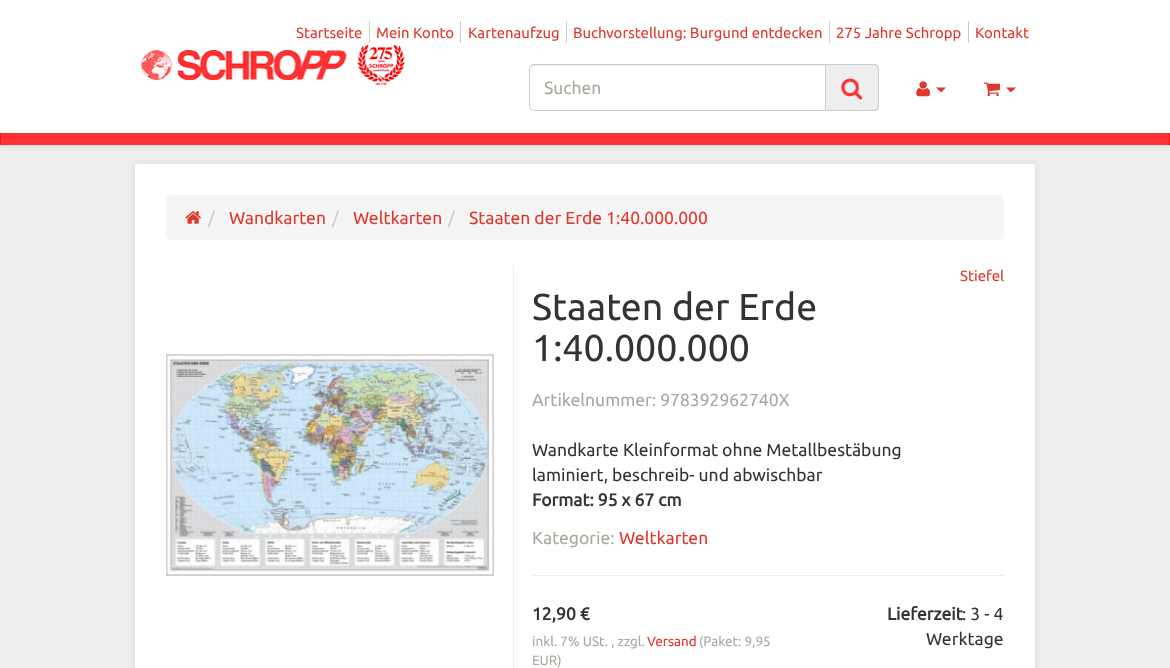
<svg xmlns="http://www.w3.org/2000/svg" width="1170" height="668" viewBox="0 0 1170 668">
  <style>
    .t1 { font: 14.9px Ubuntu; fill: #df382c; }
    .t2 { font: 17.5px Ubuntu; fill: #aea79f; }
    .t3 { font: 17.5px Ubuntu; fill: #ccc; }
    .t4 { font: 17.5px Ubuntu; fill: #df382c; }
    .t5 { font: 37.5px Ubuntu; fill: #333; }
    .t6 { font: 17.5px Ubuntu; fill: #333; }
    .t7 { font: bold 17.5px Ubuntu; fill: #333; }
    .t8 { font: 13.5px Ubuntu; fill: #aea79f; }
    .t9 { font: 13.5px Ubuntu; fill: #df382c; }
  </style>
  <rect width="100%" height="100%" fill="#eee"/>
  <rect x="-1" y="-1" width="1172" height="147" fill="#6a6a6a1a" filter="blur(3px)"/>
  <rect x="0" y="0" width="1170" height="133" fill="#fff"/>
  <text x="296" y="38" class="t1">Startseite</text>
  <rect x="369" y="21" width="1" height="22" fill="#ccc"/>
  <text x="376" y="38" class="t1">Mein Konto</text>
  <rect x="460" y="21" width="1" height="22" fill="#ccc"/>
  <text x="468" y="38" class="t1">Kartenaufzug</text>
  <rect x="566" y="21" width="1" height="22" fill="#ccc"/>
  <text x="573" y="38" class="t1">Buchvorstellung: Burgund entdecken</text>
  <rect x="829" y="21" width="1" height="22" fill="#ccc"/>
  <text x="836" y="38" class="t1">275 Jahre Schropp</text>
  <rect x="968" y="21" width="1" height="22" fill="#ccc"/>
  <text x="975" y="38" class="t1">Kontakt</text>
  <image x="141" y="45" width="265" height="40" href="images/1.png"/>
  <path d="M534 66H825V65H534C531 65 530 67 530 70C530 68 532 66 534 66Z" fill="#ececec"/>
  <path d="M534 64.5H825.5V110.5H534C531.5 110.5 529.5 108.5 529.5 106V69C529.5 66.5 531.5 64.5 534 64.5Z" fill="none" stroke="#ccc"/>
  <text x="544" y="94" class="t2">Suchen</text>
  <path d="M826 64H874C877 64 879 66 879 69V106C879 109 877 111 874 111H826Z" fill="#eee"/>
  <path d="M826 64H874C877 64 879 66 879 69V106C879 109 877 111 874 111H826ZM826 65H874C876 65 878 67 878 69V106C878 108 876 110 874 110H826Z" fill="#ccc" fill-rule="evenodd"/>
  <image x="841" y="78" width="22" height="22" href="images/2.png"/>
  <image x="916" y="81" width="14" height="16" href="images/3.png"/>
  <path d="M936 87.5H946L941 92.5Z" fill="#df382c"/>
  <image x="983" y="82" width="17" height="15" href="images/4.png"/>
  <path d="M1006 87.5H1016L1011 92.5Z" fill="#df382c"/>
  <rect x="1" y="133" width="1168" height="12" fill="#f33"/>
  <rect x="1169" y="133" width="1" height="12" fill="#ff1212"/>
  <rect x="0" y="133" width="1" height="12" fill="#ff1212"/>
  <rect x="134" y="163" width="902" height="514" fill="#6a6a6a1a" filter="blur(3px)"/>
  <rect x="135" y="164" width="900" height="504" fill="#fff"/>
  <rect x="166" y="195" width="838" height="45" rx="5" fill="#f5f5f5"/>
  <image x="185" y="211" width="16" height="13" href="images/5.png"/>
  <text x="208" y="224" class="t3">/</text>
  <text x="229" y="224" class="t4">Wandkarten</text>
  <text x="332" y="224" class="t3">/</text>
  <text x="353" y="224" class="t4">Weltkarten</text>
  <text x="448" y="224" class="t3">/</text>
  <text x="469" y="224" class="t4">Staaten der Erde 1:40.000.000</text>
  <image x="166" y="351" width="328" height="225" href="images/6.png"/>
  <rect x="513" y="265" width="1" height="403" fill="#eee"/>
  <text x="960" y="281" class="t1">Stiefel</text>
  <text x="532" y="320" class="t5">Staaten der Erde</text>
  <text x="532" y="361" class="t5">1:40.000.000</text>
  <text x="532" y="406" class="t2">Artikelnummer: 978392962740X</text>
  <text x="532" y="456" class="t6">Wandkarte Kleinformat ohne Metallbestäbung</text>
  <text x="532" y="481" class="t6">laminiert, beschreib- und abwischbar</text>
  <text x="532" y="506" class="t7">Format: 95 x 67 cm</text>
  <text x="532" y="544" class="t2">Kategorie:</text>
  <text x="619" y="544" class="t4">Weltkarten</text>
  <rect x="533" y="575" width="471" height="1" fill="#eee"/>
  <text x="532" y="620" class="t7">12,90 €</text>
  <text x="532" y="646" class="t8">inkl. 7% USt. , zzgl.</text>
  <text x="647" y="646" class="t9">Versand</text>
  <text x="699" y="646" class="t8">(Paket: 9,95</text>
  <text x="532" y="665" class="t8">EUR)</text>
  <text x="887" y="620" class="t7">Lieferzeit</text>
  <text x="962" y="620" class="t6">: 3 - 4</text>
  <text x="926" y="645" class="t6">Werktage</text>
</svg>
